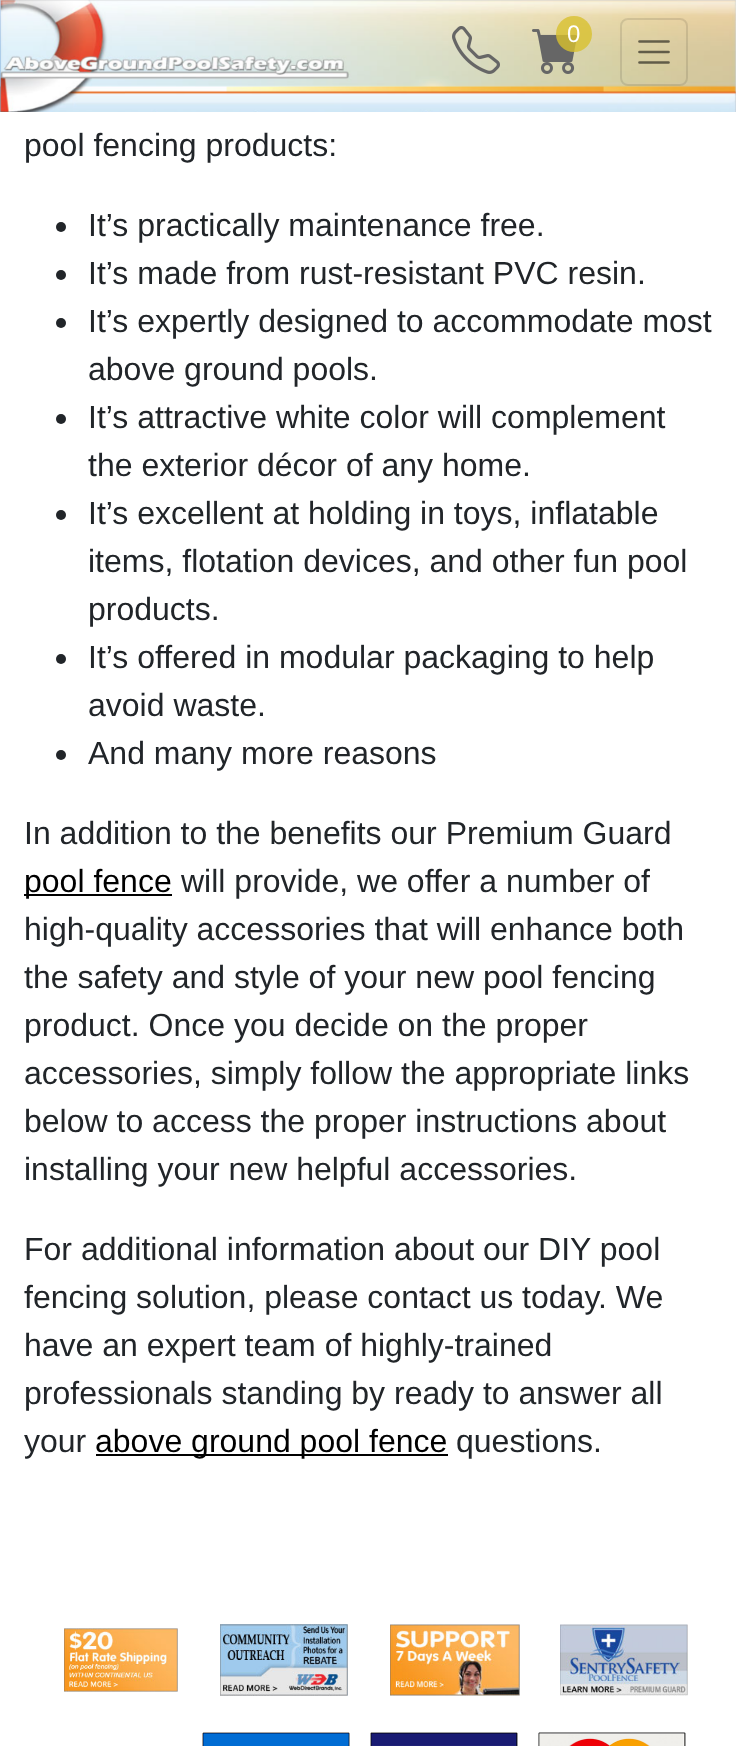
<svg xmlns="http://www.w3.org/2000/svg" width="736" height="1746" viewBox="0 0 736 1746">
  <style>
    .t1 { font: 24px Liberation Sans; fill: #fff; }
    .t2 { font: 32px Liberation Sans; fill: #212529; }
    .t3 { font: 32px Liberation Sans; fill: #000; }
  </style>
  <rect width="100%" height="100%" fill="#fff"/>
  <image x="0" y="0" width="736" height="112" href="images/1.png"/>
  <image x="452" y="26" width="48" height="48" href="images/2.png"/>
  <image x="532" y="29" width="45" height="45" href="images/3.png"/>
  <circle cx="574" cy="34" r="18" fill="#d8c02ecc"/>
  <text x="567" y="42" class="t1">0</text>
  <rect x="621" y="19" width="66" height="66" rx="7" fill="none" stroke="#0000001a" stroke-width="2"/>
  <path d="M639.5 41.5H668.5M639.5 52H668.5M639.5 62.5H668.5" fill="none" stroke="#0000008c" stroke-width="2.7" stroke-linecap="round"/>
  <text x="24" y="156" class="t2">pool fencing products:</text>
  <circle cx="61" cy="227" r="5" fill="#212529"/>
  <text x="88" y="236" class="t2">It’s practically maintenance free.</text>
  <circle cx="61" cy="275" r="5" fill="#212529"/>
  <text x="88" y="284" class="t2">It’s made from rust-resistant PVC resin.</text>
  <circle cx="61" cy="323" r="5" fill="#212529"/>
  <text x="88" y="332" class="t2">It’s expertly designed to accommodate most</text>
  <text x="88" y="380" class="t2">above ground pools.</text>
  <circle cx="61" cy="419" r="5" fill="#212529"/>
  <text x="88" y="428" class="t2">It’s attractive white color will complement</text>
  <text x="88" y="476" class="t2">the exterior décor of any home.</text>
  <circle cx="61" cy="515" r="5" fill="#212529"/>
  <text x="88" y="524" class="t2">It’s excellent at holding in toys, inflatable</text>
  <text x="88" y="572" class="t2">items, flotation devices, and other fun pool</text>
  <text x="88" y="620" class="t2">products.</text>
  <circle cx="61" cy="659" r="5" fill="#212529"/>
  <text x="88" y="668" class="t2">It’s offered in modular packaging to help</text>
  <text x="88" y="716" class="t2">avoid waste.</text>
  <circle cx="61" cy="755" r="5" fill="#212529"/>
  <text x="88" y="764" class="t2">And many more reasons</text>
  <text x="24" y="844" class="t2">In addition to the benefits our Premium Guard</text>
  <rect x="24" y="894" width="148" height="2" fill="#000"/>
  <text x="24" y="892" class="t3">pool fence</text>
  <text x="181" y="892" class="t2">will provide, we offer a number of</text>
  <text x="24" y="940" class="t2">high-quality accessories that will enhance both</text>
  <text x="24" y="988" class="t2">the safety and style of your new pool fencing</text>
  <text x="24" y="1036" class="t2">product. Once you decide on the proper</text>
  <text x="24" y="1084" class="t2">accessories, simply follow the appropriate links</text>
  <text x="24" y="1132" class="t2">below to access the proper instructions about</text>
  <text x="24" y="1180" class="t2">installing your new helpful accessories.</text>
  <text x="24" y="1260" class="t2">For additional information about our DIY pool</text>
  <text x="24" y="1308" class="t2">fencing solution, please contact us today. We</text>
  <text x="24" y="1356" class="t2">have an expert team of highly-trained</text>
  <text x="24" y="1404" class="t2">professionals standing by ready to answer all</text>
  <text x="24" y="1452" class="t2">your</text>
  <rect x="96" y="1454" width="352" height="2" fill="#000"/>
  <text x="95" y="1452" class="t3">above ground pool fence</text>
  <text x="456" y="1452" class="t2">questions.</text>
  <image x="64" y="1628" width="114" height="64" href="images/4.png"/>
  <image x="220" y="1624" width="128" height="72" href="images/5.png"/>
  <image x="390" y="1624" width="130" height="72" href="images/6.png"/>
  <image x="560" y="1624" width="128" height="72" href="images/7.png"/>
  <image x="202" y="1732" width="148" height="14" href="images/8.png"/>
  <image x="370" y="1732" width="148" height="14" href="images/9.png"/>
  <image x="538" y="1732" width="148" height="14" href="images/10.png"/>
</svg>
